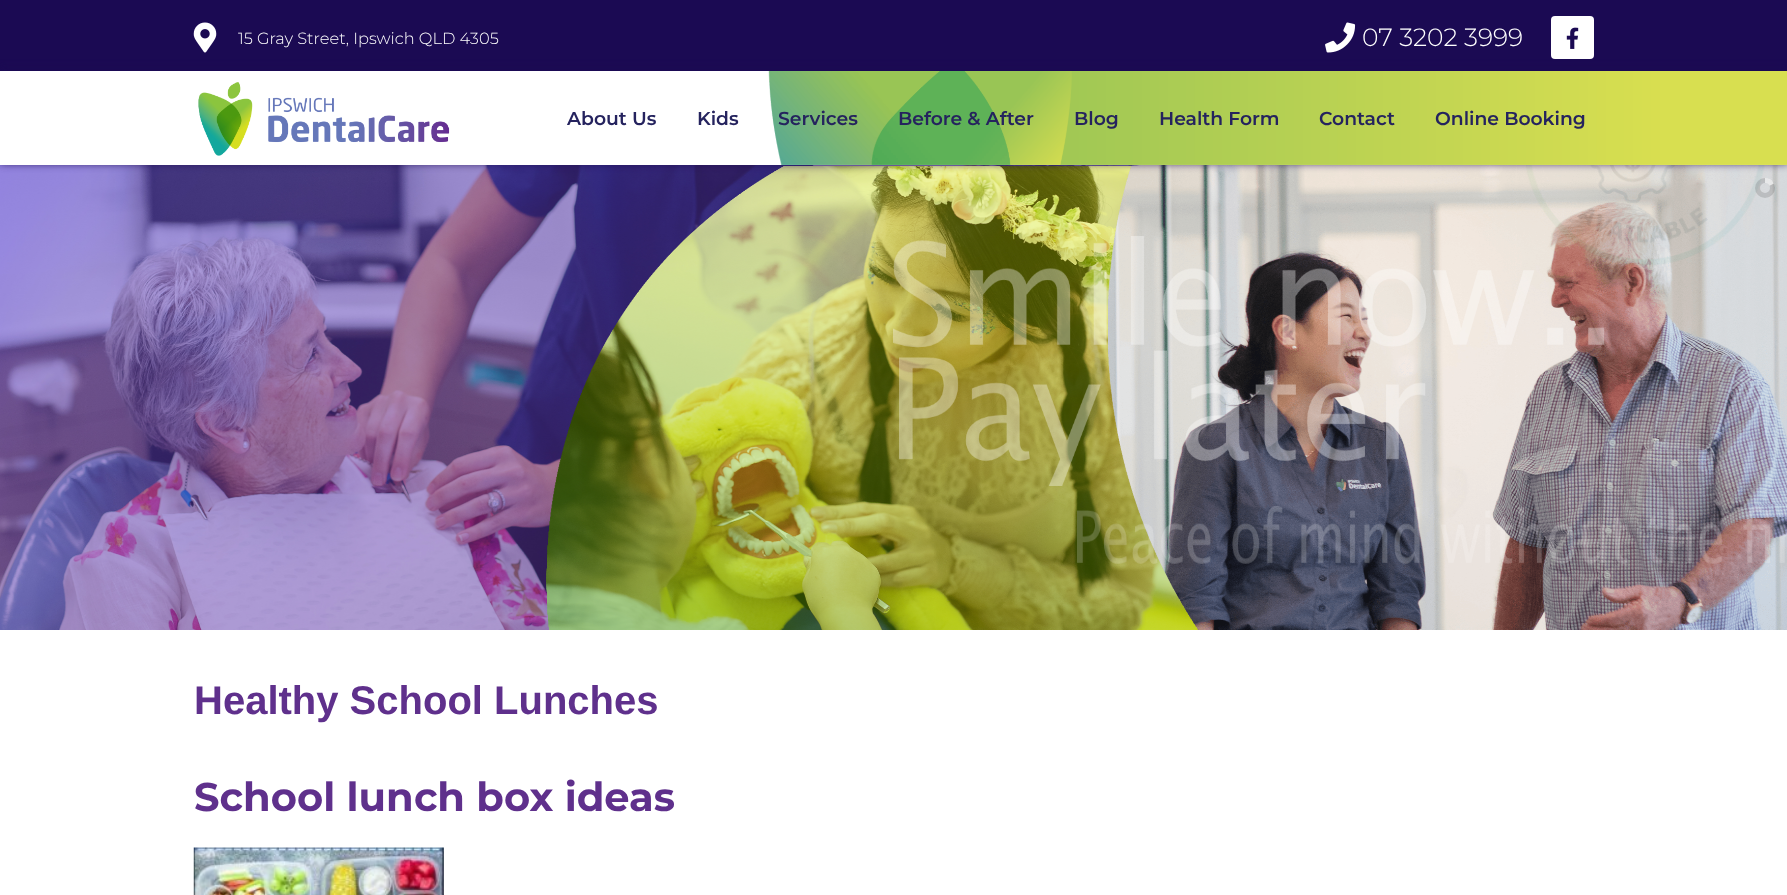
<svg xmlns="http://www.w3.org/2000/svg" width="1787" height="895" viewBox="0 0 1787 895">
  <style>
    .t1 { font: 300 16.25px Montserrat; fill: #fff; }
    .t2 { font: 300 25px Montserrat; fill: #fff; }
    .t3 { font: 600 18.75px Montserrat; fill: #25235e; }
    .t4 { font: bold 40px Liberation Sans; fill: #5f308c; }
    .t5 { font: bold 40px Montserrat; fill: #5f308c; }
  </style>
  <defs>
    <clipPath id="clip1"><rect x="1765" y="178" width="10" height="20"/></clipPath>
    <clipPath id="clip2"><path d="M1769.5 174.5L1774 183.5L1756 192.5L1751.5 183.5Z"/></clipPath>
  </defs>
  <rect width="100%" height="100%" fill="#fff"/>
  <rect x="0" y="0" width="1787" height="71" fill="#1b0a53"/>
  <image x="193" y="22" width="24" height="31" href="images/1.png"/>
  <text x="238" y="44" class="t1">15 Gray Street, Ipswich QLD 4305</text>
  <image x="1325" y="22" width="31" height="31" href="images/2.png"/>
  <text x="1362" y="46" class="t2">07 3202 3999</text>
  <rect x="1551" y="16" width="43" height="43" rx="4" fill="#fff"/>
  <image x="1566" y="27" width="13" height="22" href="images/3.png"/>
  <image x="812" y="165" width="327" height="1" href="images/7.png"/>
  <image x="0" y="165" width="814" height="465" href="images/6.png"/>
  <image x="546" y="166" width="652" height="464" href="images/9.png"/>
  <image x="1108" y="165" width="679" height="465" href="images/8.png"/>
  <image x="893" y="236" width="712" height="250" href="images/10.png"/>
  <image x="1526" y="165" width="239" height="101" href="images/11.png"/>
  <rect x="0" y="69" width="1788" height="94" fill="#1b0a53" filter="blur(4.5px)"/>
  <rect x="0" y="71" width="1787" height="94" fill="#fff"/>
  <image x="768" y="71" width="1019" height="94" href="images/4.png"/>
  <image x="198" y="82" width="252" height="74" href="images/5.png"/>
  <text x="567" y="125" class="t3">About Us</text>
  <text x="697" y="125" class="t3">Kids</text>
  <text x="778" y="125" class="t3">Services</text>
  <text x="898" y="125" class="t3">Before &amp; After</text>
  <text x="1074" y="125" class="t3">Blog</text>
  <text x="1159" y="125" class="t3">Health Form</text>
  <text x="1319" y="125" class="t3">Contact</text>
  <text x="1435" y="125" class="t3">Online Booking</text>
  <image x="1077" y="506" width="710" height="58" href="images/12.png"/>
  <circle cx="1765" cy="188" r="7.5" fill="none" stroke="#00000021" stroke-width="5"/>
  <g clip-path="url(#clip1)">
    <g clip-path="url(#clip2)">
      <path d="M1771.5 184.5C1776 193.5 1762.5 200 1758.5 191.5C1754 182.5 1767.5 176 1771.5 184.5Z" fill="none" stroke="#ffffffa6" stroke-width="5"/>
    </g>
  </g>
  <text x="194" y="714" class="t4">Healthy School Lunches</text>
  <text x="194" y="811" class="t5">School lunch box ideas</text>
  <image x="193" y="847" width="251" height="48" href="images/13.png"/>
</svg>
